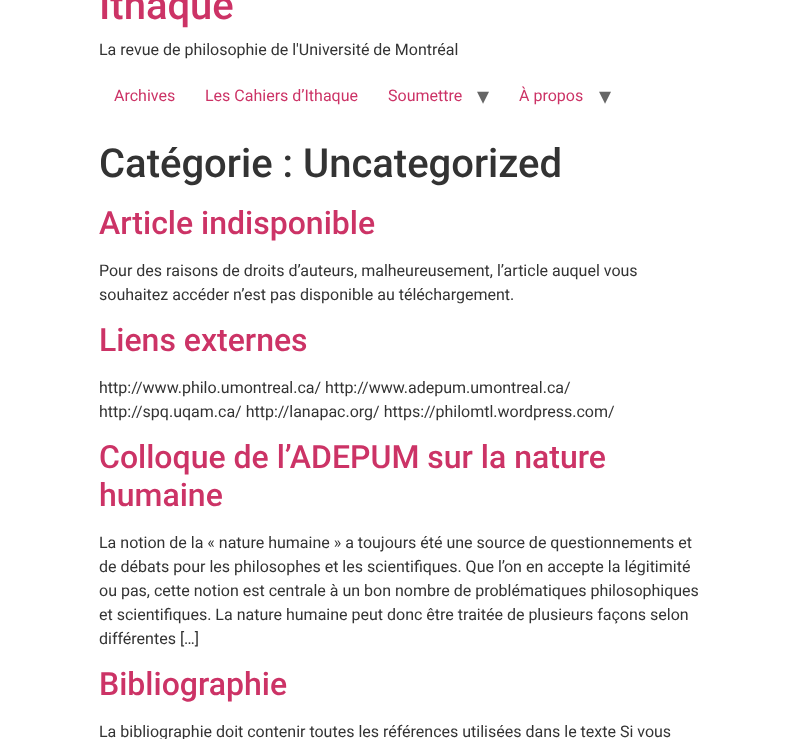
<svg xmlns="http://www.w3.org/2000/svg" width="798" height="739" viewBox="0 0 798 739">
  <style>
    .t1 { font: 500 40px Roboto; fill: #c36; }
    .t2 { font: 16px Roboto; fill: #333; }
    .t3 { font: 16px Roboto; fill: #c36; }
    .t4 { font: 24px DejaVu Sans; fill: #666; }
    .t5 { font: 500 40px Roboto; fill: #333; }
    .t6 { font: 500 32px Roboto; fill: #c36; }
  </style>
  <rect width="100%" height="100%" fill="#fff"/>
  <text x="99" y="19" class="t1">Ithaque</text>
  <text x="99" y="55" class="t2">La revue de philosophie de l'Université de Montréal</text>
  <text x="114" y="101" class="t3">Archives</text>
  <text x="205" y="101" class="t3">Les Cahiers d’Ithaque</text>
  <text x="388" y="101" class="t3">Soumettre</text>
  <text x="477" y="104" class="t4">▾</text>
  <text x="519" y="101" class="t3">À propos</text>
  <text x="599" y="104" class="t4">▾</text>
  <text x="99" y="177" class="t5">Catégorie : Uncategorized</text>
  <text x="99" y="234" class="t6">Article indisponible</text>
  <text x="99" y="276" class="t2">Pour des raisons de droits d’auteurs, malheureusement, l’article auquel vous</text>
  <text x="99" y="300" class="t2">souhaitez accéder n’est pas disponible au téléchargement.</text>
  <text x="99" y="351" class="t6">Liens externes</text>
  <text x="99" y="393" class="t2">http://www.philo.umontreal.ca/ http://www.adepum.umontreal.ca/</text>
  <text x="99" y="417" class="t2">http://spq.uqam.ca/ http://lanapac.org/ https://philomtl.wordpress.com/</text>
  <text x="99" y="468" class="t6">Colloque de l’ADEPUM sur la nature</text>
  <text x="99" y="506" class="t6">humaine</text>
  <text x="99" y="548" class="t2">La notion de la « nature humaine » a toujours été une source de questionnements et</text>
  <text x="99" y="572" class="t2">de débats pour les philosophes et les scientifiques. Que l’on en accepte la légitimité</text>
  <text x="99" y="596" class="t2">ou pas, cette notion est centrale à un bon nombre de problématiques philosophiques</text>
  <text x="99" y="620" class="t2">et scientifiques. La nature humaine peut donc être traitée de plusieurs façons selon</text>
  <text x="99" y="644" class="t2">différentes […]</text>
  <text x="99" y="695" class="t6">Bibliographie</text>
  <text x="99" y="737" class="t2">La bibliographie doit contenir toutes les références utilisées dans le texte Si vous</text>
</svg>
